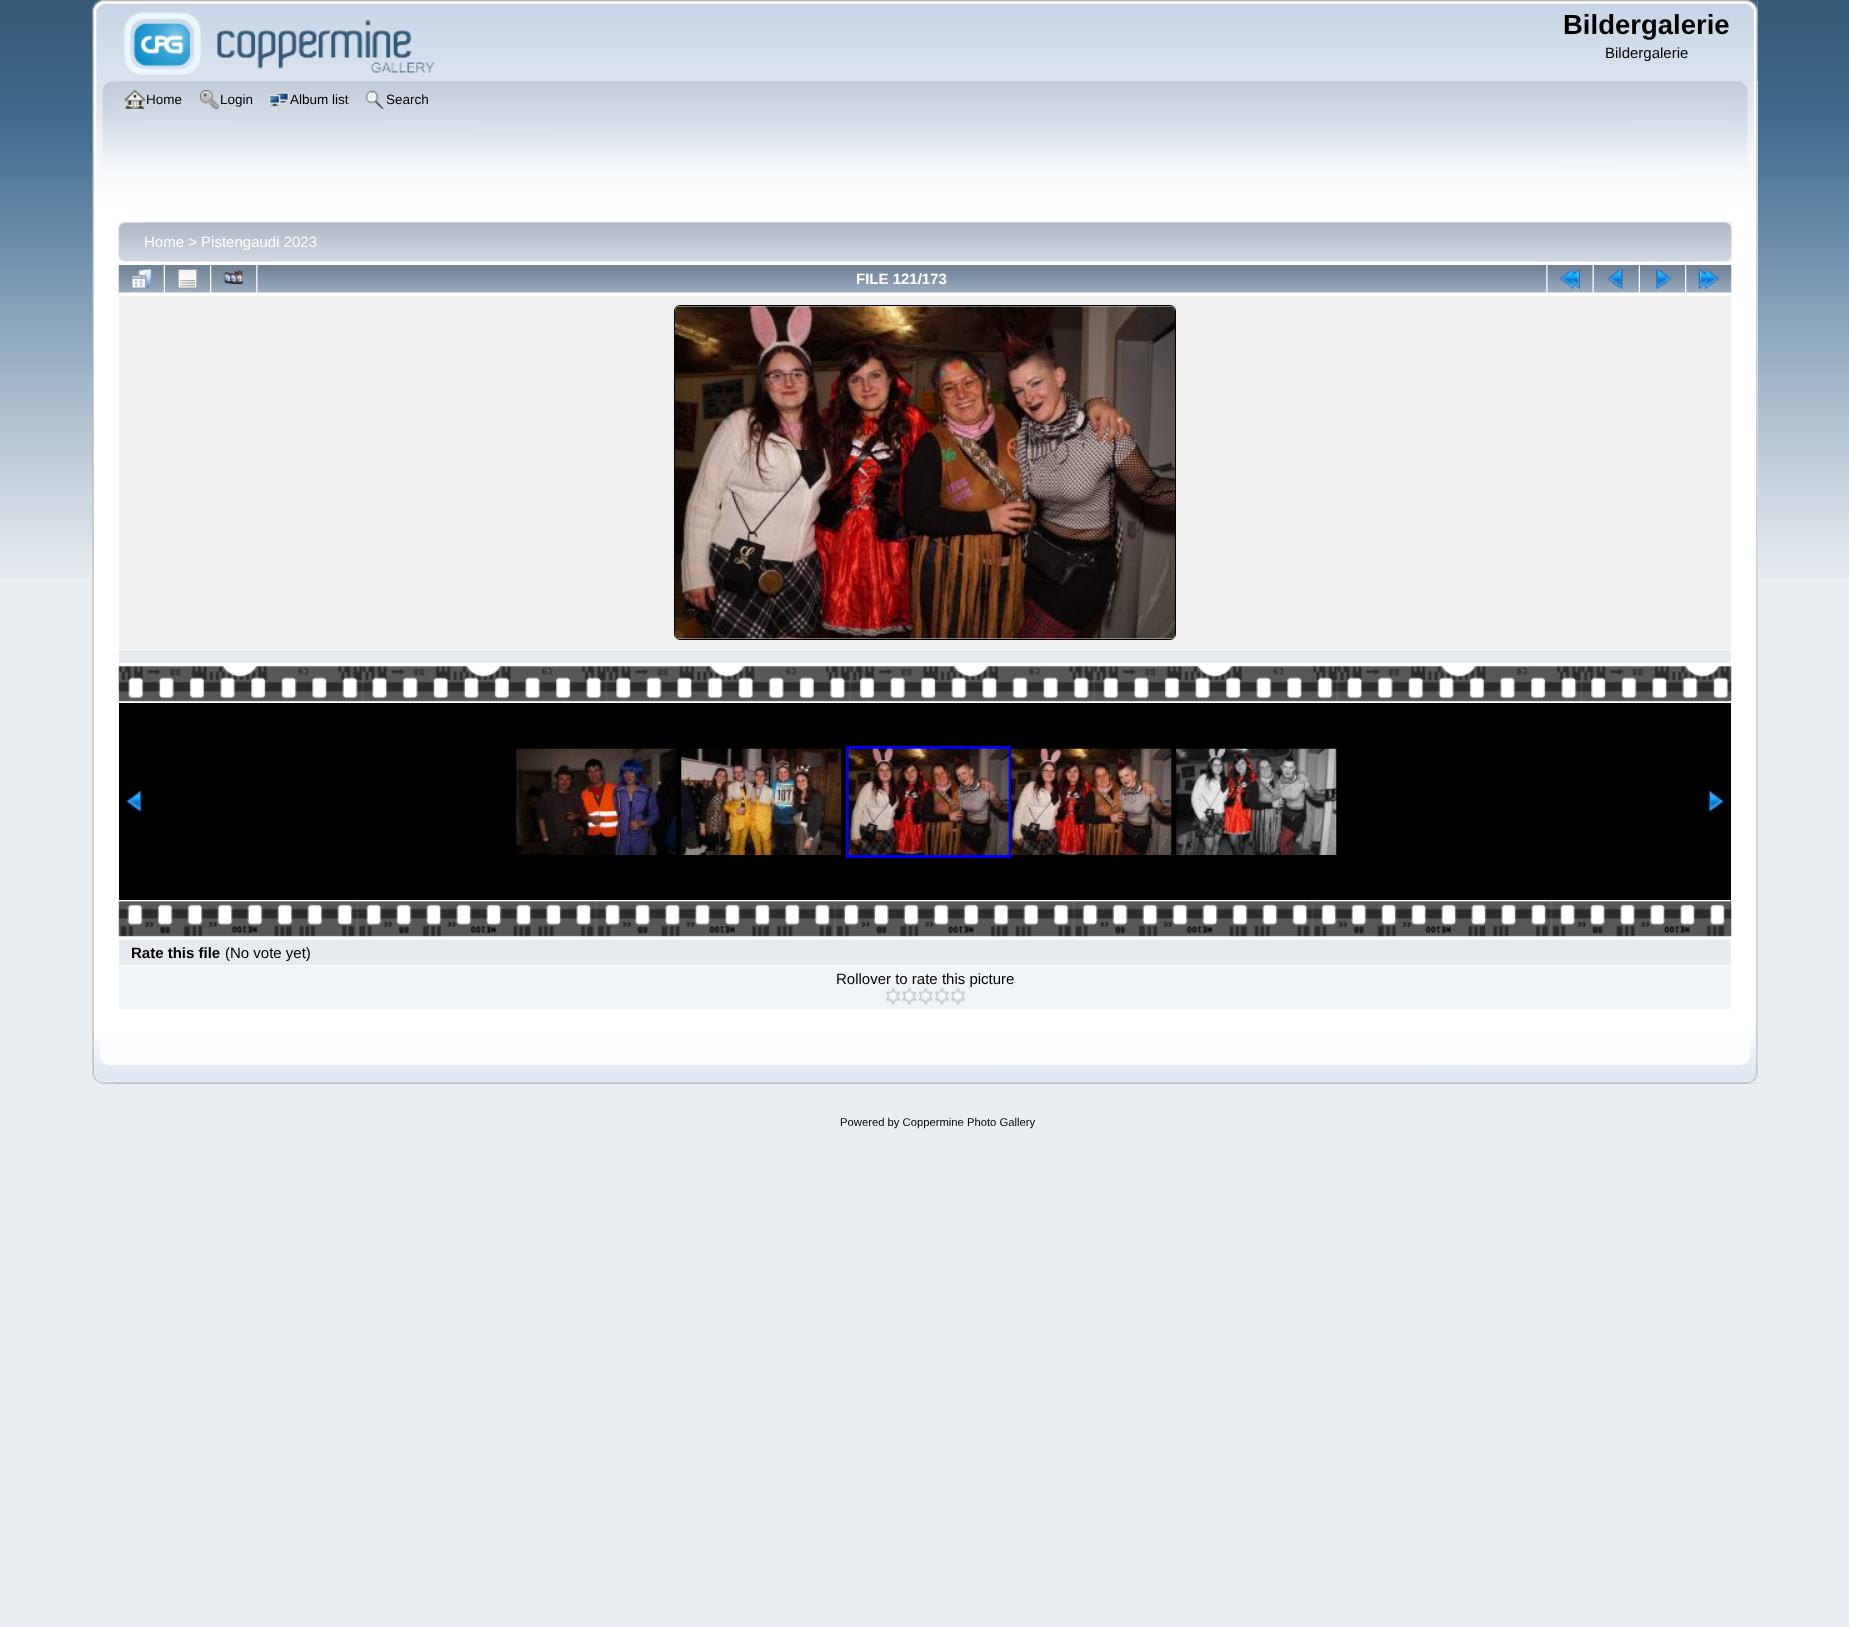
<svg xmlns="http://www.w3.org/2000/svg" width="1849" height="1627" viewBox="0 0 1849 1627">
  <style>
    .t1 { font: bold 27.5px Liberation Sans; fill: #000; }
    .t2 { font: 15px Liberation Sans; fill: #000; }
    .t3 { font: 13.5px Liberation Sans; fill: #000; }
    .t4 { font: 15px Liberation Sans; fill: #fff; }
    .t5 { font: bold 15px Liberation Sans; fill: #fff; }
    .t6 { font: bold 15px Liberation Sans; fill: #000; }
    .t7 { font: 11.25px Liberation Sans; fill: #000; }
  </style>
  <rect width="100%" height="100%" fill="#e9eef2"/>
  <image x="0" y="0" width="1849" height="577" href="images/1.png"/>
  <image x="92" y="0" width="1666" height="82" href="images/2.png"/>
  <image x="117" y="0" width="1641" height="81" href="images/3.png"/>
  <image x="123" y="12" width="311" height="63" href="images/4.png"/>
  <text x="1563" y="34" class="t1">Bildergalerie</text>
  <text x="1605" y="58" class="t2">Bildergalerie</text>
  <rect x="93" y="81" width="1665" height="138" fill="#fefefe"/>
  <image x="92" y="81" width="1666" height="138" href="images/5.png"/>
  <image x="117" y="81" width="1641" height="138" href="images/6.png"/>
  <image x="125" y="90" width="20" height="20" href="images/7.png"/>
  <text x="146" y="104" class="t3">Home</text>
  <image x="199" y="90" width="20" height="19" href="images/8.png"/>
  <text x="220" y="104" class="t3">Login</text>
  <image x="268" y="92" width="21" height="16" href="images/9.png"/>
  <text x="290" y="104" class="t3">Album list</text>
  <image x="365" y="90" width="20" height="19" href="images/10.png"/>
  <text x="386" y="104" class="t3">Search</text>
  <rect x="93" y="219" width="1665" height="810" fill="#fff"/>
  <image x="92" y="218" width="1665" height="811" href="images/11.png"/>
  <image x="1756" y="218" width="2" height="811" href="images/12.png"/>
  <image x="118" y="222" width="1614" height="40" href="images/13.png"/>
  <image x="143" y="222" width="1589" height="40" href="images/14.png"/>
  <text x="144" y="247" class="t4">Home &gt; Pistengaudi 2023</text>
  <image x="118" y="265" width="46" height="28" href="images/15.png"/>
  <image x="131" y="268" width="21" height="21" href="images/16.png"/>
  <image x="165" y="265" width="45" height="28" href="images/17.png"/>
  <image x="177" y="268" width="21" height="21" href="images/18.png"/>
  <image x="211" y="265" width="46" height="28" href="images/19.png"/>
  <image x="223" y="270" width="21" height="15" href="images/20.png"/>
  <image x="257" y="265" width="1290" height="28" href="images/21.png"/>
  <text x="856" y="284" class="t5">FILE 121/173</text>
  <image x="1547" y="265" width="46" height="28" href="images/22.png"/>
  <image x="1560" y="268" width="20" height="21" href="images/23.png"/>
  <image x="1593" y="265" width="46" height="28" href="images/15.png"/>
  <image x="1607" y="268" width="16" height="21" href="images/24.png"/>
  <image x="1640" y="265" width="45" height="28" href="images/17.png"/>
  <image x="1656" y="268" width="16" height="21" href="images/25.png"/>
  <image x="1686" y="265" width="46" height="28" href="images/19.png"/>
  <image x="1698" y="268" width="21" height="21" href="images/26.png"/>
  <rect x="119" y="296" width="1612" height="353" fill="#efefef"/>
  <rect x="674.5" y="305.5" width="501" height="334" rx="5.5" fill="none" stroke="#000"/>
  <image x="675" y="306" width="500" height="333" href="images/27.png"/>
  <rect x="119" y="650" width="1612" height="13" fill="#e7eaef"/>
  <image x="118" y="666" width="1614" height="36" href="images/28.png"/>
  <rect x="119" y="703" width="1612" height="197" fill="#000"/>
  <image x="126" y="791" width="16" height="21" href="images/29.png"/>
  <image x="516" y="748" width="161" height="107" href="images/30.png"/>
  <image x="681" y="748" width="161" height="107" href="images/31.png"/>
  <rect x="847.5" y="747.5" width="162" height="109" fill="none" stroke="#00f" stroke-width="3"/>
  <image x="848" y="748" width="161" height="107" href="images/32.png"/>
  <image x="1011" y="748" width="161" height="107" href="images/33.png"/>
  <image x="1176" y="748" width="161" height="107" href="images/34.png"/>
  <image x="1708" y="791" width="16" height="21" href="images/35.png"/>
  <image x="118" y="901" width="1614" height="36" href="images/36.png"/>
  <rect x="119" y="940" width="1612" height="25" fill="#e7eaef"/>
  <text x="131" y="958" class="t6">Rate this file</text>
  <text x="225" y="958" class="t2">(No vote yet)</text>
  <rect x="119" y="966" width="1612" height="43" fill="#f0f4f7"/>
  <text x="836" y="984" class="t2">Rollover to rate this picture</text>
  <image x="885" y="987" width="16" height="18" href="images/37.png"/>
  <image x="901" y="987" width="16" height="18" href="images/38.png"/>
  <image x="917" y="987" width="16" height="18" href="images/39.png"/>
  <image x="934" y="987" width="16" height="18" href="images/40.png"/>
  <image x="950" y="987" width="16" height="18" href="images/41.png"/>
  <image x="92" y="1028" width="1666" height="56" href="images/42.png"/>
  <image x="117" y="1028" width="1641" height="56" href="images/43.png"/>
  <text x="840" y="1126" class="t7">Powered by Coppermine Photo Gallery</text>
</svg>
